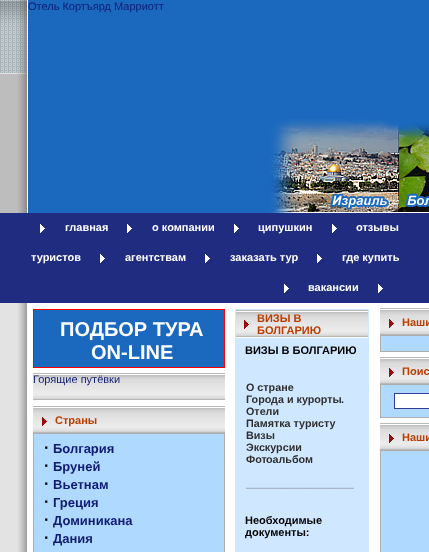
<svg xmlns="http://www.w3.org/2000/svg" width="429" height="552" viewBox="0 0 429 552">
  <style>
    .t1 { font: 11px Liberation Sans; fill: #101c73; }
    .t2 { font: bold 11px Liberation Sans; fill: #fff; }
    .t3 { font: bold 20px Liberation Sans; fill: #fff; }
    .t4 { font: bold 11px Liberation Sans; fill: #bc3d01; }
    .t5 { font: bold 16px Liberation Sans; fill: #000; }
    .t6 { font: bold 13px Liberation Sans; fill: #101c73; }
    .t7 { font: bold 11px Liberation Sans; fill: #000; }
    .t8 { font: bold 10.75px Liberation Sans; fill: #2f2f2f; }
    .t9 { font: bold 10.75px Liberation Sans; fill: #101c73; }
    .t10 { font: bold 10.75px Liberation Sans; fill: #515151; }
  </style>
  <rect width="100%" height="100%" fill="#fff"/>
  <image x="0" y="0" width="28" height="213" href="images/1.png"/>
  <rect x="28" y="0" width="401" height="213" fill="#1a69be"/>
  <text x="28" y="10" class="t1">Отель Кортъярд Марриотт</text>
  <image x="269" y="119" width="160" height="94" href="images/2.png"/>
  <rect x="0" y="213" width="429" height="90" fill="#202c80"/>
  <image x="40" y="224" width="5" height="9" href="images/3.png"/>
  <text x="65" y="231" class="t2">главная</text>
  <image x="127" y="224" width="5" height="9" href="images/3.png"/>
  <text x="152" y="231" class="t2">о компании</text>
  <image x="234" y="224" width="5" height="9" href="images/3.png"/>
  <text x="258" y="231" class="t2">ципушкин</text>
  <image x="332" y="224" width="5" height="9" href="images/3.png"/>
  <text x="356" y="231" class="t2">отзывы</text>
  <text x="31" y="261" class="t2">туристов</text>
  <image x="100" y="254" width="5" height="9" href="images/3.png"/>
  <text x="125" y="261" class="t2">агентствам</text>
  <image x="205" y="254" width="5" height="9" href="images/3.png"/>
  <text x="230" y="261" class="t2">заказать тур</text>
  <image x="317" y="254" width="5" height="9" href="images/3.png"/>
  <text x="342" y="261" class="t2">где купить</text>
  <image x="284" y="284" width="5" height="9" href="images/3.png"/>
  <text x="308" y="291" class="t2">вакансии</text>
  <image x="378" y="284" width="5" height="9" href="images/3.png"/>
  <image x="0" y="303" width="27" height="249" href="images/4.png"/>
  <rect x="33.5" y="309.5" width="191" height="58" fill="#1b69be" stroke="#f00"/>
  <text x="60" y="336" class="t3">ПОДБОР ТУРА</text>
  <text x="91" y="359" class="t3">ON-LINE</text>
  <image x="33" y="373" width="192" height="28" href="images/5.png"/>
  <text x="33" y="383" class="t1">Горящие путёвки</text>
  <image x="33" y="406" width="192" height="27" href="images/6.png"/>
  <image x="42" y="417" width="5" height="9" href="images/7.png"/>
  <text x="55" y="424" class="t4">Страны</text>
  <rect x="33" y="433" width="192" height="119" fill="#adadad"/>
  <rect x="34" y="434" width="190" height="118" fill="#b0d9ff"/>
  <text x="44" y="453" class="t5">·</text>
  <text x="53" y="453" class="t6">Болгария</text>
  <text x="44" y="471" class="t5">·</text>
  <text x="53" y="471" class="t6">Бруней</text>
  <text x="44" y="489" class="t5">·</text>
  <text x="53" y="489" class="t6">Вьетнам</text>
  <text x="44" y="507" class="t5">·</text>
  <text x="53" y="507" class="t6">Греция</text>
  <text x="44" y="525" class="t5">·</text>
  <text x="53" y="525" class="t6">Доминикана</text>
  <text x="44" y="543" class="t5">·</text>
  <text x="53" y="543" class="t6">Дания</text>
  <rect x="235" y="309" width="134" height="243" fill="#d0e8ff"/>
  <image x="236" y="310" width="20" height="28" href="images/8.png"/>
  <image x="244" y="320" width="5" height="9" href="images/7.png"/>
  <image x="256" y="310" width="112" height="28" href="images/9.png"/>
  <text x="257" y="322" class="t4">ВИЗЫ В</text>
  <text x="257" y="334" class="t4">БОЛГАРИЮ</text>
  <text x="245" y="354" class="t7">ВИЗЫ В БОЛГАРИЮ</text>
  <text x="246" y="391" class="t8">О стране</text>
  <text x="246" y="403" class="t8">Города и курорты</text>
  <text x="341" y="403" class="t9">.</text>
  <text x="246" y="415" class="t8">Отели</text>
  <text x="246" y="427" class="t8">Памятка туристу</text>
  <text x="246" y="439" class="t8">Визы</text>
  <text x="246" y="451" class="t8">Экскурсии</text>
  <text x="246" y="463" class="t8">Фот</text>
  <text x="266" y="463" class="t8">оальбом</text>
  <text x="246" y="487" class="t10">__________________</text>
  <text x="245" y="524" class="t7">Необходимые</text>
  <text x="245" y="536" class="t7">документы:</text>
  <image x="380" y="308" width="49" height="27" href="images/10.png"/>
  <image x="389" y="319" width="5" height="9" href="images/7.png"/>
  <text x="402" y="326" class="t4">Наши</text>
  <rect x="380" y="335" width="49" height="17" fill="#adadad"/>
  <rect x="381" y="336" width="48" height="15" fill="#b0d9ff"/>
  <image x="380" y="357" width="49" height="27" href="images/10.png"/>
  <image x="389" y="368" width="5" height="9" href="images/7.png"/>
  <text x="402" y="375" class="t4">Поис</text>
  <rect x="380" y="384" width="49" height="34" fill="#adadad"/>
  <rect x="381" y="385" width="48" height="32" fill="#b0d9ff"/>
  <rect x="394.5" y="393.5" width="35" height="15" fill="#fff" stroke="#303d99"/>
  <image x="380" y="423" width="49" height="27" href="images/10.png"/>
  <image x="389" y="434" width="5" height="9" href="images/7.png"/>
  <text x="402" y="441" class="t4">Наши</text>
  <rect x="380" y="450" width="49" height="102" fill="#adadad"/>
  <rect x="381" y="451" width="48" height="101" fill="#b0d9ff"/>
</svg>
